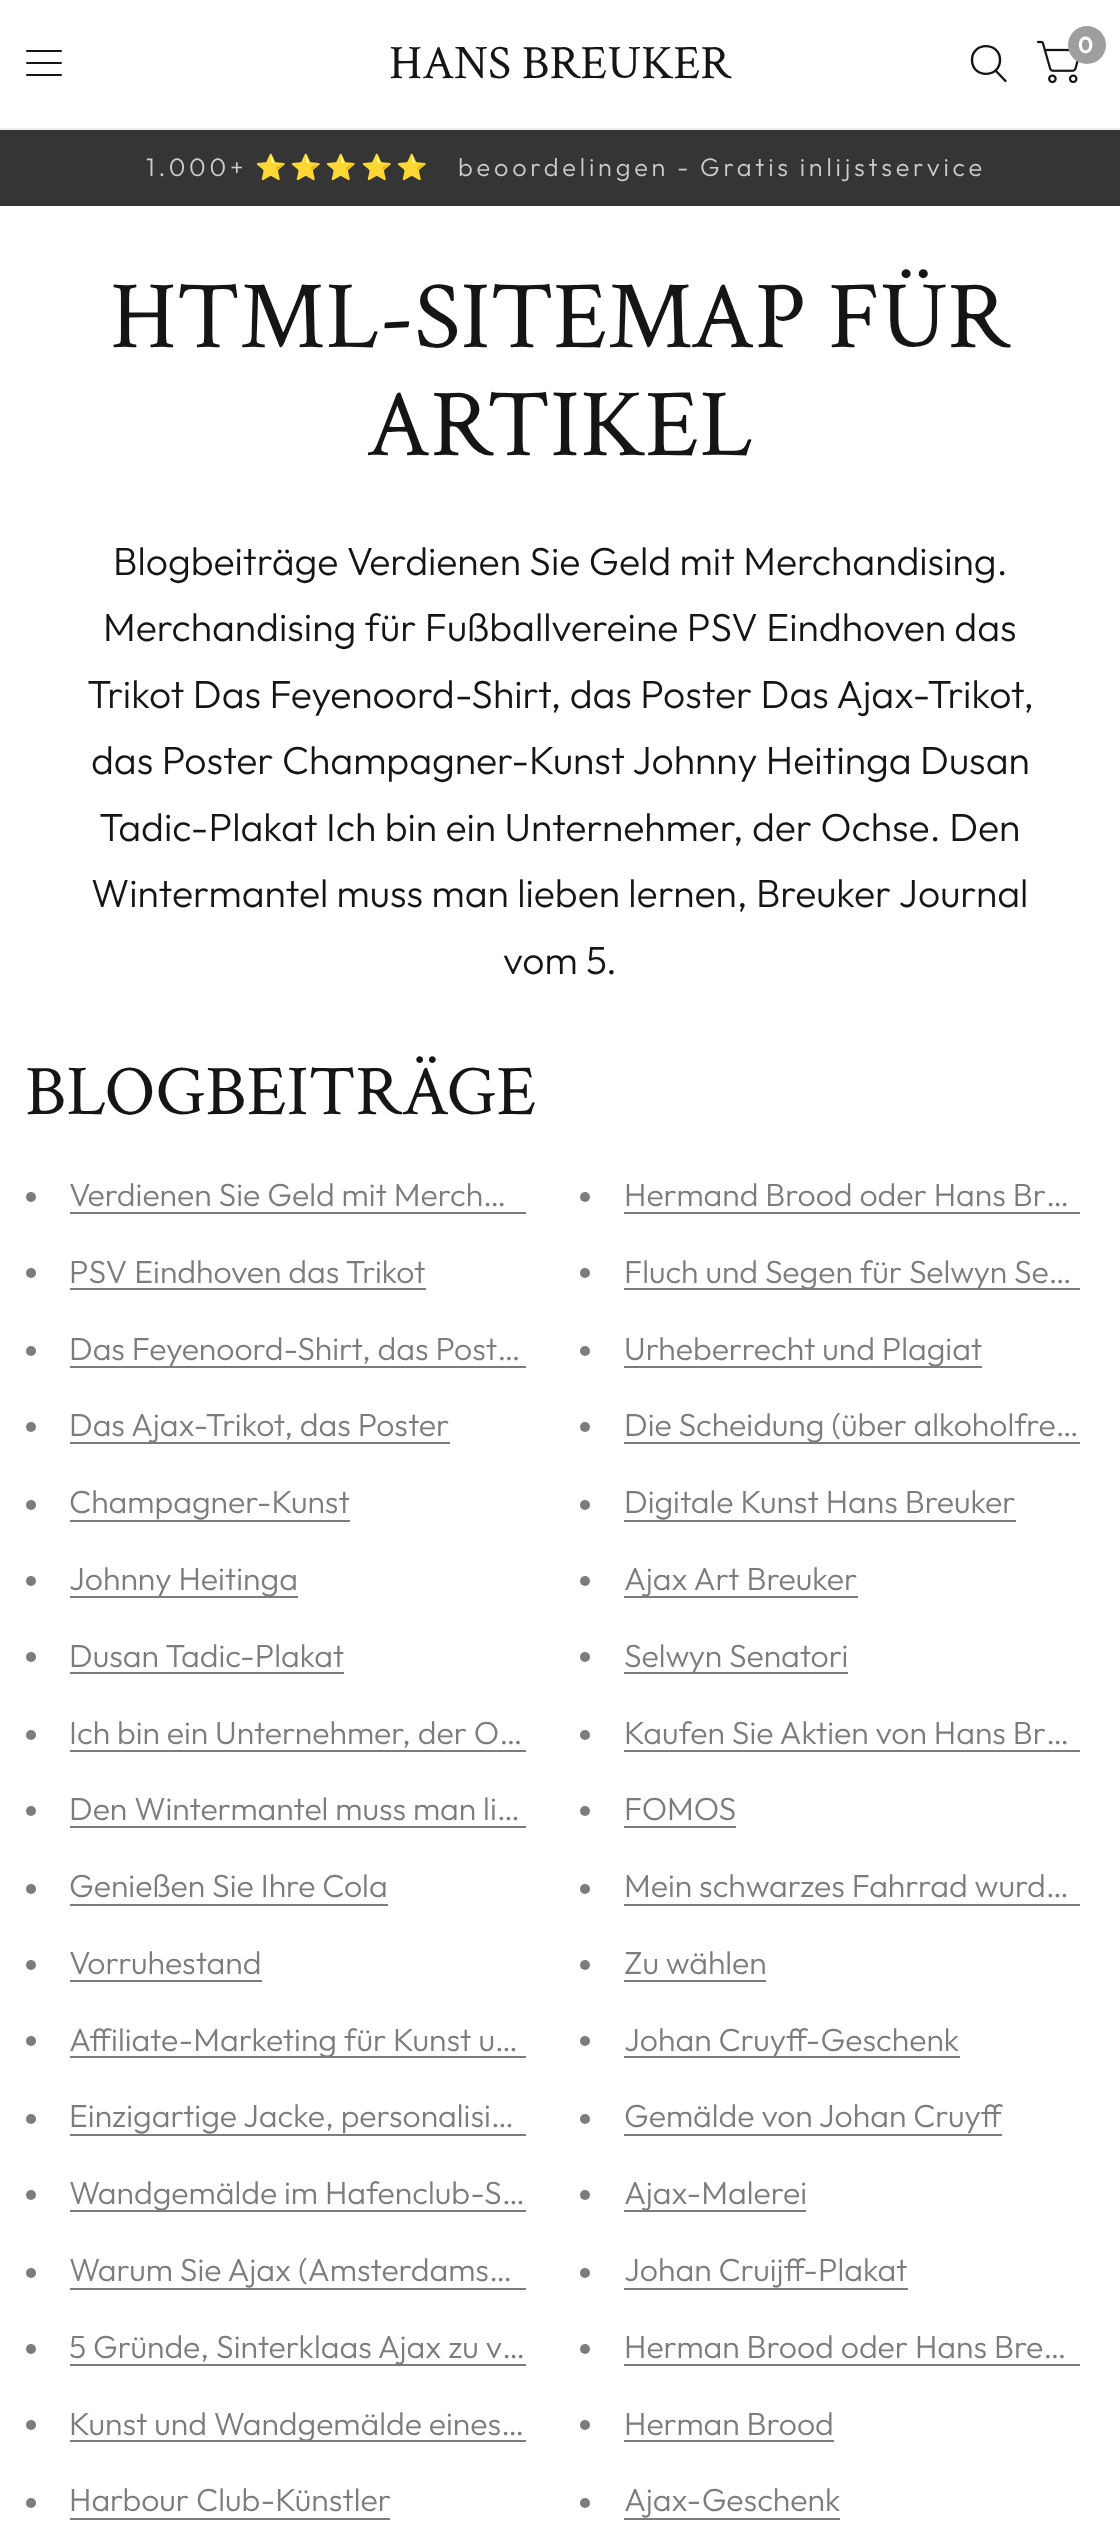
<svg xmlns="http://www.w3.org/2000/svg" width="1120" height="2540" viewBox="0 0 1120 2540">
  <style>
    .t1 { font: 48px Crimson Text; fill: #151515; }
    .t2 { font: 600 23px Outfit; fill: #fff; }
    .t3 { font: 300 25.3px Outfit; letter-spacing: 3.8px; fill: #cdcdcd; }
    .t4 { font: 25.3px Noto Color Emoji; letter-spacing: 3.8px; fill: #cdcdcd; }
    .t5 { font: 96.5px Crimson Text; fill: #151515; }
    .t6 { font: 300 39.1px Outfit; fill: #151515; }
    .t7 { font: 71.5px Crimson Text; fill: #151515; }
    .t8 { font: 300 32px Outfit; fill: #7c7c7c; }
  </style>
  <rect width="100%" height="100%" fill="#fff"/>
  <rect x="0" y="128" width="1120" height="2" fill="#eee"/>
  <rect x="26" y="50" width="36" height="2" rx="1" fill="#151515"/>
  <rect x="26" y="62" width="36" height="2" rx="1" fill="#151515"/>
  <rect x="26" y="74" width="36" height="2" rx="1" fill="#151515"/>
  <text x="389" y="78" class="t1">HANS BREUKER</text>
  <path d="M996 71L1005.5 81M1000 60C1000 78.5 972 78.5 972 60C972 41.5 1000 41.5 1000 60Z" fill="none" stroke="#151515" stroke-width="2.4" stroke-linecap="round" stroke-linejoin="round"/>
  <image x="1036" y="40" width="43" height="44" href="images/1.png"/>
  <circle cx="1087" cy="45" r="19" fill="#9e9e9e"/>
  <text x="1078" y="53" class="t2">0</text>
  <rect x="0" y="130" width="1120" height="76" fill="#353535"/>
  <text x="146" y="176" class="t3">1.000+</text>
  <text x="255" y="176" class="t4">⭐️⭐️⭐️⭐️⭐️</text>
  <text x="458" y="176" word-spacing="-1.5" class="t3">beoordelingen - Gratis inlijstservice</text>
  <text x="110" y="347" class="t5">HTML-SITEMAP FÜR</text>
  <text x="366" y="455" class="t5">ARTIKEL</text>
  <text x="113" y="575" class="t6">Blogbeiträge Verdienen Sie Geld mit Merchandising.</text>
  <text x="103" y="641" class="t6">Merchandising für Fußballvereine PSV Eindhoven das</text>
  <text x="87" y="708" class="t6">Trikot Das Feyenoord-Shirt, das Poster Das Ajax-Trikot,</text>
  <text x="91" y="774" class="t6">das Poster Champagner-Kunst Johnny Heitinga Dusan</text>
  <text x="99" y="841" class="t6">Tadic-Plakat Ich bin ein Unternehmer, der Ochse. Den</text>
  <text x="91" y="907" class="t6">Wintermantel muss man lieben lernen, Breuker Journal</text>
  <text x="503" y="974" class="t6">vom 5.</text>
  <text x="25" y="1114" class="t7">BLOGBEITRÄGE</text>
  <circle cx="31" cy="1197" r="5" fill="#7c7c7c"/>
  <text x="69" y="1206" class="t8">Verdienen Sie Geld mit Merch…</text>
  <rect x="70" y="1212" width="456" height="2" fill="#7c7c7c"/>
  <circle cx="585" cy="1197" r="5" fill="#7c7c7c"/>
  <text x="624" y="1206" class="t8">Hermand Brood oder Hans Br…</text>
  <rect x="624" y="1212" width="456" height="2" fill="#7c7c7c"/>
  <circle cx="31" cy="1273" r="5" fill="#7c7c7c"/>
  <text x="69" y="1283" class="t8">PSV Eindhoven das Trikot</text>
  <rect x="70" y="1288" width="356" height="2" fill="#7c7c7c"/>
  <circle cx="585" cy="1273" r="5" fill="#7c7c7c"/>
  <rect x="624" y="1288" width="456" height="2" fill="#7c7c7c"/>
  <text x="624" y="1283" class="t8">Fluch und Segen für Selwyn Se…</text>
  <circle cx="31" cy="1351" r="5" fill="#7c7c7c"/>
  <rect x="70" y="1366" width="456" height="2" fill="#7c7c7c"/>
  <text x="69" y="1360" class="t8">Das Feyenoord-Shirt, das Post…</text>
  <circle cx="585" cy="1351" r="5" fill="#7c7c7c"/>
  <rect x="624" y="1366" width="358" height="2" fill="#7c7c7c"/>
  <text x="624" y="1360" class="t8">Urheberrecht und Plagiat</text>
  <circle cx="31" cy="1427" r="5" fill="#7c7c7c"/>
  <rect x="70" y="1442" width="380" height="2" fill="#7c7c7c"/>
  <text x="69" y="1436" class="t8">Das Ajax-Trikot, das Poster</text>
  <circle cx="585" cy="1427" r="5" fill="#7c7c7c"/>
  <rect x="624" y="1442" width="456" height="2" fill="#7c7c7c"/>
  <text x="624" y="1436" class="t8">Die Scheidung (über alkoholfre…</text>
  <circle cx="31" cy="1505" r="5" fill="#7c7c7c"/>
  <text x="69" y="1513" class="t8">Champagner-Kunst</text>
  <rect x="70" y="1520" width="280" height="2" fill="#7c7c7c"/>
  <circle cx="585" cy="1505" r="5" fill="#7c7c7c"/>
  <text x="624" y="1513" class="t8">Digitale Kunst Hans Breuker</text>
  <rect x="624" y="1520" width="392" height="2" fill="#7c7c7c"/>
  <circle cx="31" cy="1581" r="5" fill="#7c7c7c"/>
  <rect x="70" y="1596" width="228" height="2" fill="#7c7c7c"/>
  <text x="69" y="1590" class="t8">Johnny Heitinga</text>
  <circle cx="585" cy="1581" r="5" fill="#7c7c7c"/>
  <rect x="624" y="1596" width="234" height="2" fill="#7c7c7c"/>
  <text x="624" y="1590" class="t8">Ajax Art Breuker</text>
  <circle cx="31" cy="1657" r="5" fill="#7c7c7c"/>
  <text x="69" y="1667" class="t8">Dusan Tadic-Plakat</text>
  <rect x="70" y="1672" width="274" height="2" fill="#7c7c7c"/>
  <circle cx="585" cy="1657" r="5" fill="#7c7c7c"/>
  <rect x="624" y="1672" width="224" height="2" fill="#7c7c7c"/>
  <text x="624" y="1667" class="t8">Selwyn Senatori</text>
  <circle cx="31" cy="1735" r="5" fill="#7c7c7c"/>
  <text x="69" y="1744" class="t8">Ich bin ein Unternehmer, der O…</text>
  <rect x="70" y="1750" width="456" height="2" fill="#7c7c7c"/>
  <circle cx="585" cy="1735" r="5" fill="#7c7c7c"/>
  <text x="624" y="1744" class="t8">Kaufen Sie Aktien von Hans Br…</text>
  <rect x="624" y="1750" width="456" height="2" fill="#7c7c7c"/>
  <circle cx="31" cy="1811" r="5" fill="#7c7c7c"/>
  <text x="69" y="1820" class="t8">Den Wintermantel muss man li…</text>
  <rect x="70" y="1826" width="456" height="2" fill="#7c7c7c"/>
  <circle cx="585" cy="1811" r="5" fill="#7c7c7c"/>
  <text x="624" y="1820" class="t8">FOMOS</text>
  <rect x="624" y="1826" width="112" height="2" fill="#7c7c7c"/>
  <circle cx="31" cy="1889" r="5" fill="#7c7c7c"/>
  <text x="69" y="1897" class="t8">Genießen Sie Ihre Cola</text>
  <rect x="70" y="1904" width="318" height="2" fill="#7c7c7c"/>
  <circle cx="585" cy="1889" r="5" fill="#7c7c7c"/>
  <text x="624" y="1897" class="t8">Mein schwarzes Fahrrad wurd…</text>
  <rect x="624" y="1904" width="456" height="2" fill="#7c7c7c"/>
  <circle cx="31" cy="1965" r="5" fill="#7c7c7c"/>
  <text x="69" y="1974" class="t8">Vorruhestand</text>
  <rect x="70" y="1980" width="192" height="2" fill="#7c7c7c"/>
  <circle cx="585" cy="1965" r="5" fill="#7c7c7c"/>
  <text x="624" y="1974" class="t8">Zu wählen</text>
  <rect x="624" y="1980" width="142" height="2" fill="#7c7c7c"/>
  <circle cx="31" cy="2041" r="5" fill="#7c7c7c"/>
  <rect x="70" y="2056" width="456" height="2" fill="#7c7c7c"/>
  <text x="69" y="2051" class="t8">Affiliate-Marketing für Kunst u…</text>
  <circle cx="585" cy="2041" r="5" fill="#7c7c7c"/>
  <rect x="624" y="2056" width="336" height="2" fill="#7c7c7c"/>
  <text x="624" y="2051" class="t8">Johan Cruyff-Geschenk</text>
  <circle cx="31" cy="2119" r="5" fill="#7c7c7c"/>
  <text x="69" y="2127" class="t8">Einzigartige Jacke, personalisi…</text>
  <rect x="70" y="2134" width="456" height="2" fill="#7c7c7c"/>
  <circle cx="585" cy="2119" r="5" fill="#7c7c7c"/>
  <text x="624" y="2127" class="t8">Gemälde von Johan Cruyff</text>
  <rect x="624" y="2134" width="378" height="2" fill="#7c7c7c"/>
  <circle cx="31" cy="2195" r="5" fill="#7c7c7c"/>
  <rect x="70" y="2210" width="456" height="2" fill="#7c7c7c"/>
  <text x="69" y="2204" class="t8">Wandgemälde im Hafenclub-S…</text>
  <circle cx="585" cy="2195" r="5" fill="#7c7c7c"/>
  <rect x="624" y="2210" width="182" height="2" fill="#7c7c7c"/>
  <text x="624" y="2204" class="t8">Ajax-Malerei</text>
  <circle cx="31" cy="2273" r="5" fill="#7c7c7c"/>
  <text x="69" y="2281" class="t8">Warum Sie Ajax (Amsterdams…</text>
  <rect x="70" y="2288" width="456" height="2" fill="#7c7c7c"/>
  <circle cx="585" cy="2273" r="5" fill="#7c7c7c"/>
  <text x="624" y="2281" class="t8">Johan Cruijff-Plakat</text>
  <rect x="624" y="2288" width="284" height="2" fill="#7c7c7c"/>
  <circle cx="31" cy="2349" r="5" fill="#7c7c7c"/>
  <rect x="70" y="2364" width="456" height="2" fill="#7c7c7c"/>
  <text x="69" y="2358" class="t8">5 Gründe, Sinterklaas Ajax zu v…</text>
  <circle cx="585" cy="2349" r="5" fill="#7c7c7c"/>
  <text x="624" y="2358" class="t8">Herman Brood oder Hans Bre…</text>
  <rect x="624" y="2364" width="456" height="2" fill="#7c7c7c"/>
  <circle cx="31" cy="2425" r="5" fill="#7c7c7c"/>
  <rect x="70" y="2440" width="456" height="2" fill="#7c7c7c"/>
  <text x="69" y="2435" class="t8">Kunst und Wandgemälde eines…</text>
  <circle cx="585" cy="2425" r="5" fill="#7c7c7c"/>
  <text x="624" y="2435" class="t8">Herman Brood</text>
  <rect x="624" y="2440" width="210" height="2" fill="#7c7c7c"/>
  <circle cx="31" cy="2503" r="5" fill="#7c7c7c"/>
  <text x="69" y="2511" class="t8">Harbour Club-Künstler</text>
  <rect x="70" y="2518" width="320" height="2" fill="#7c7c7c"/>
  <circle cx="585" cy="2503" r="5" fill="#7c7c7c"/>
  <text x="624" y="2511" class="t8">Ajax-Geschenk</text>
  <rect x="624" y="2518" width="216" height="2" fill="#7c7c7c"/>
</svg>
